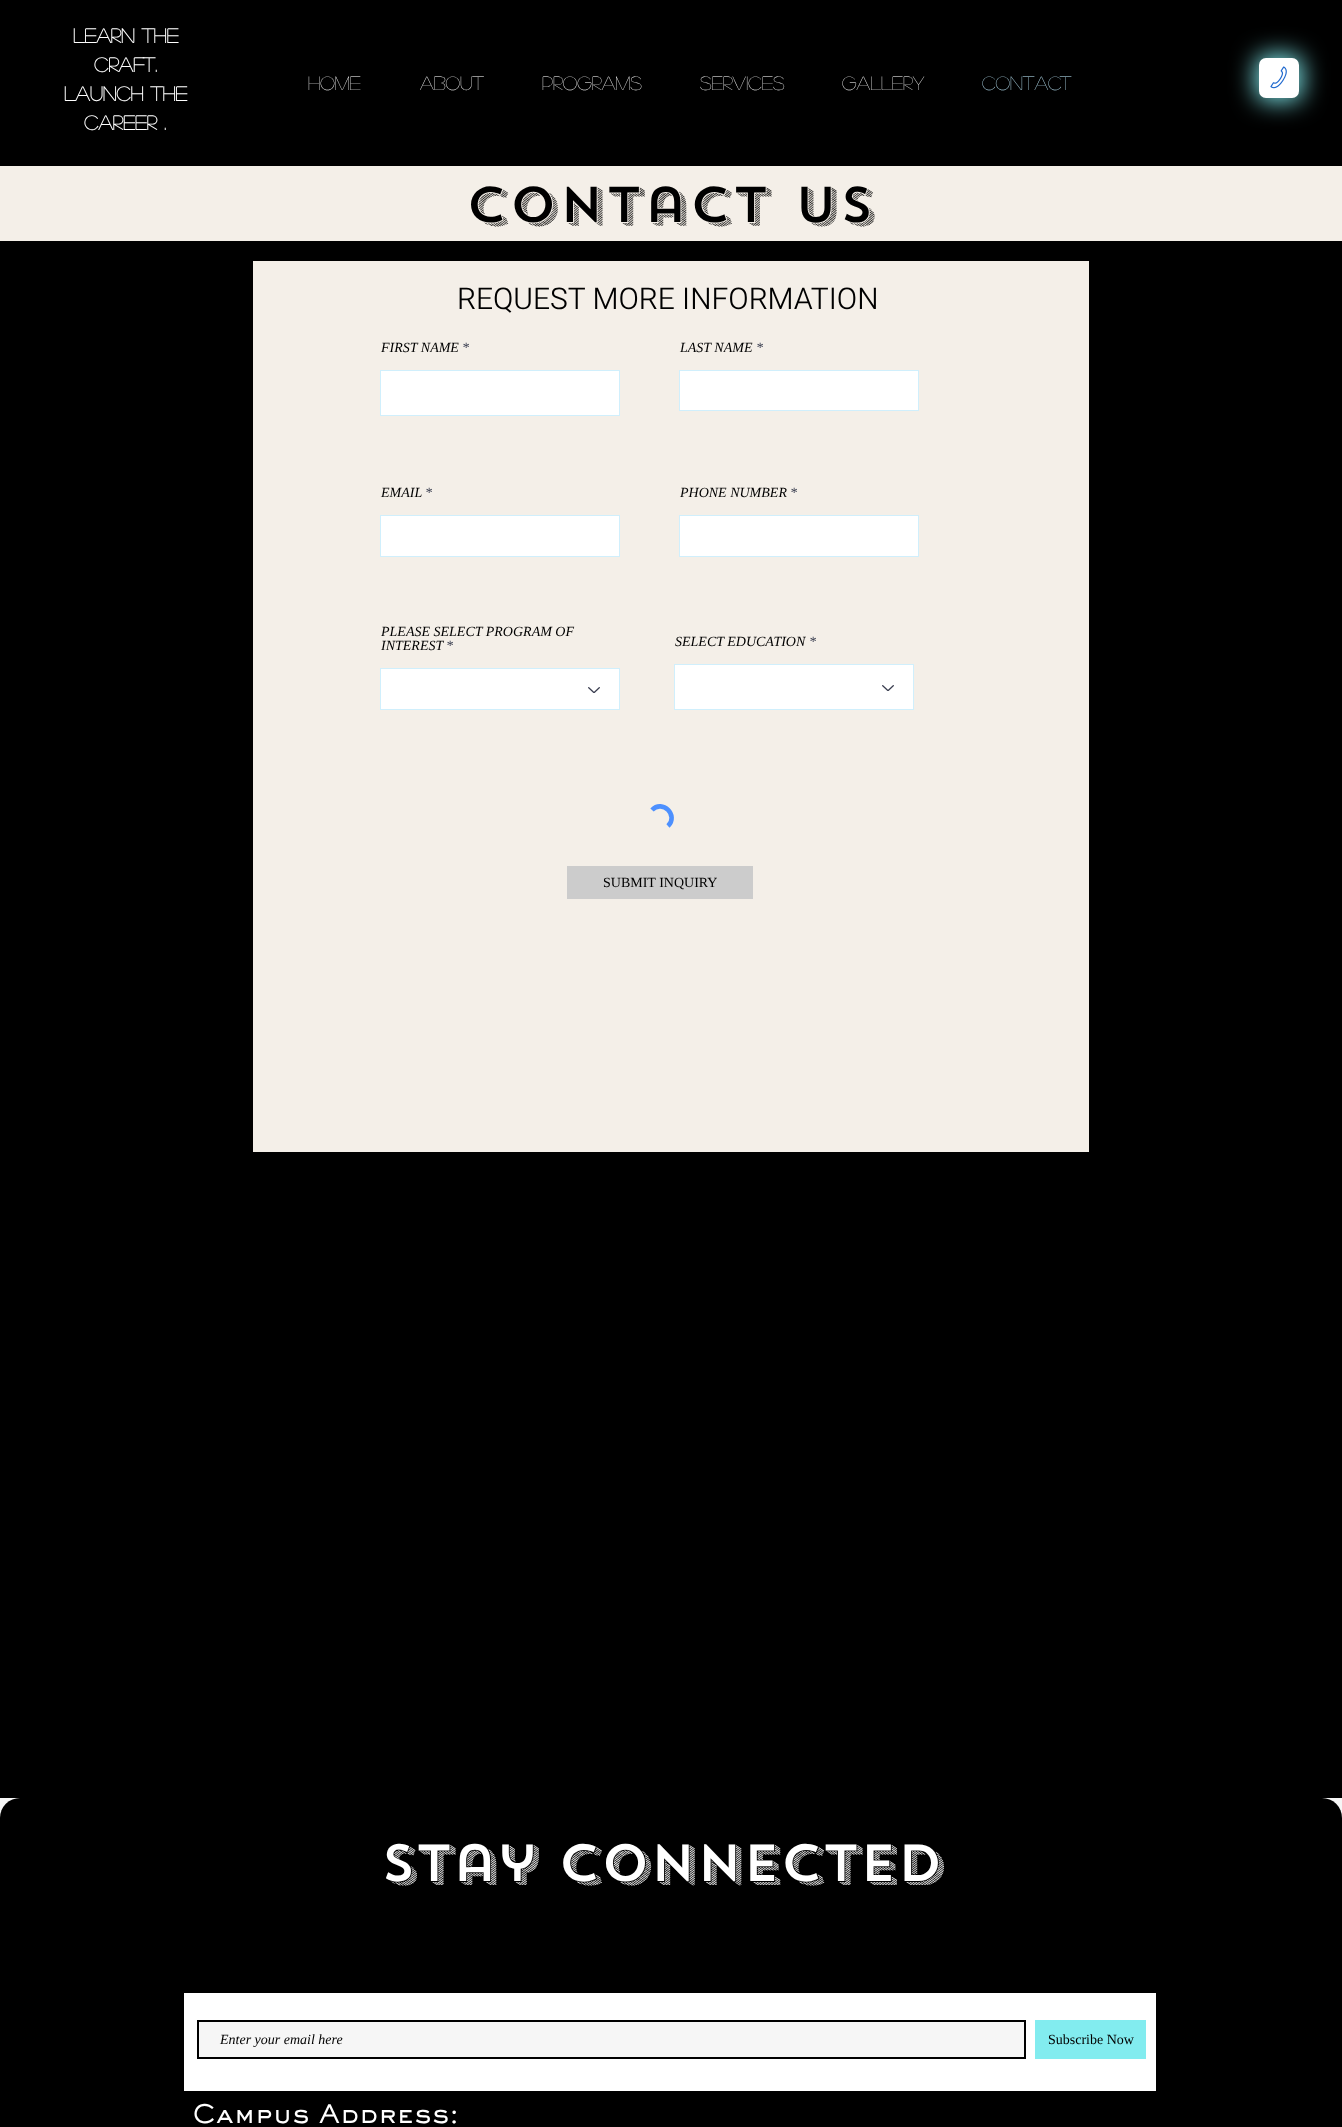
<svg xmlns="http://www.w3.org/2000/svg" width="1342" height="2127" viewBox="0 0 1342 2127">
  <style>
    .t1 { font: bold 20px 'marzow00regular'; fill: #fff; }
    .t2 { font: 19px 'marzow00regular'; fill: #fff; }
    .t3 { font: 19px 'marzow00regular'; fill: #bde9fb; }
    .t4 { font: 500 50px 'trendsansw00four'; letter-spacing: 2.5px; fill: #000; }
    .t5 { font: 300 30px Heebo; fill: #000; }
    .t6 { font: italic 14px Liberation Serif; fill: #000; }
    .t7 { font: italic 14px Liberation Serif; fill: #373b4d; }
    .t8 { font: 14px Liberation Serif; fill: #000; }
    .t9 { font: 500 52px 'trendsansw00four'; fill: #fff; }
    .t10 { font: 500 25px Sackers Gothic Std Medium; fill: #fff; }
  </style>
  <rect width="100%" height="100%" fill="#f6f6f6"/>
  <rect x="0" y="0" width="1342" height="166" fill="#000"/>
  <text x="73" y="43" class="t1">learn the</text>
  <text x="94" y="72" class="t1">craft.</text>
  <text x="64" y="101" class="t1">launch the</text>
  <text x="84" y="130" class="t1">career .</text>
  <rect x="1256" y="55" width="46" height="46" rx="10" fill="#82ecef" filter="blur(12px)"/>
  <rect x="1259" y="58" width="40" height="40" rx="7" fill="#fff"/>
  <image x="1270" y="66" width="17" height="23" href="images/1.png"/>
  <text x="308" y="90" class="t2">Home</text>
  <text x="420" y="90" class="t2">About</text>
  <text x="542" y="90" class="t2">Programs</text>
  <text x="700" y="90" class="t2">Services</text>
  <text x="842" y="90" class="t2">Gallery</text>
  <text x="982" y="90" class="t3">Contact</text>
  <rect x="0" y="166" width="1342" height="75" fill="#f4efe8"/>
  <text x="466" y="222" class="t4">Contact Us</text>
  <rect x="0" y="241" width="1342" height="1557" fill="#000"/>
  <rect x="253" y="261" width="836" height="891" fill="#f4efe8"/>
  <text x="457" y="309" class="t5">REQUEST MORE INFORMATION</text>
  <text x="381" y="352" class="t6">FIRST NAME</text>
  <text x="462" y="352" class="t7">*</text>
  <rect x="380.5" y="370.5" width="239" height="45" fill="#fff" stroke="#d0effc"/>
  <text x="680" y="352" class="t6">LAST NAME</text>
  <text x="756" y="352" class="t7">*</text>
  <rect x="679.5" y="370.5" width="239" height="40" fill="#fff" stroke="#d0effc"/>
  <text x="381" y="497" class="t6">EMAIL</text>
  <text x="425" y="497" class="t7">*</text>
  <rect x="380.5" y="515.5" width="239" height="41" fill="#fff" stroke="#d0effc"/>
  <text x="680" y="497" class="t6">PHONE NUMBER</text>
  <text x="790" y="497" class="t7">*</text>
  <rect x="679.5" y="515.5" width="239" height="41" fill="#fff" stroke="#d0effc"/>
  <text x="381" y="636" class="t6">PLEASE SELECT PROGRAM OF</text>
  <text x="381" y="650" class="t6">INTEREST</text>
  <text x="446" y="650" class="t7">*</text>
  <rect x="380.5" y="668.5" width="239" height="41" fill="#fff" stroke="#d0effc"/>
  <image x="588" y="687" width="12" height="6" href="images/2.png"/>
  <text x="675" y="646" class="t6">SELECT EDUCATION</text>
  <text x="809" y="646" class="t7">*</text>
  <rect x="674.5" y="664.5" width="239" height="45" fill="#fff" stroke="#d0effc"/>
  <image x="882" y="685" width="12" height="6" href="images/2.png"/>
  <path d="M652 810C662.5 799 679 815.5 668 826" fill="none" stroke="#4d90fe" stroke-width="4.6"/>
  <rect x="567" y="866" width="186" height="33" fill="#ccc"/>
  <text x="603" y="887" class="t8">SUBMIT INQUIRY</text>
  <rect x="0" y="1798" width="1342" height="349" rx="20" fill="#000"/>
  <text x="381" y="1881" class="t9">Stay Connected</text>
  <rect x="184" y="1993" width="972" height="98" fill="#fff"/>
  <rect x="198" y="2021" width="827" height="37" fill="#f6f6f6" stroke="#000" stroke-width="2"/>
  <text x="220" y="2044" class="t6">Enter your email here</text>
  <rect x="1035" y="2020" width="111" height="39" fill="#82ecef"/>
  <text x="1048" y="2044" class="t8">Subscribe Now</text>
  <text x="192" y="2123" class="t10">Campus Address:</text>
</svg>
